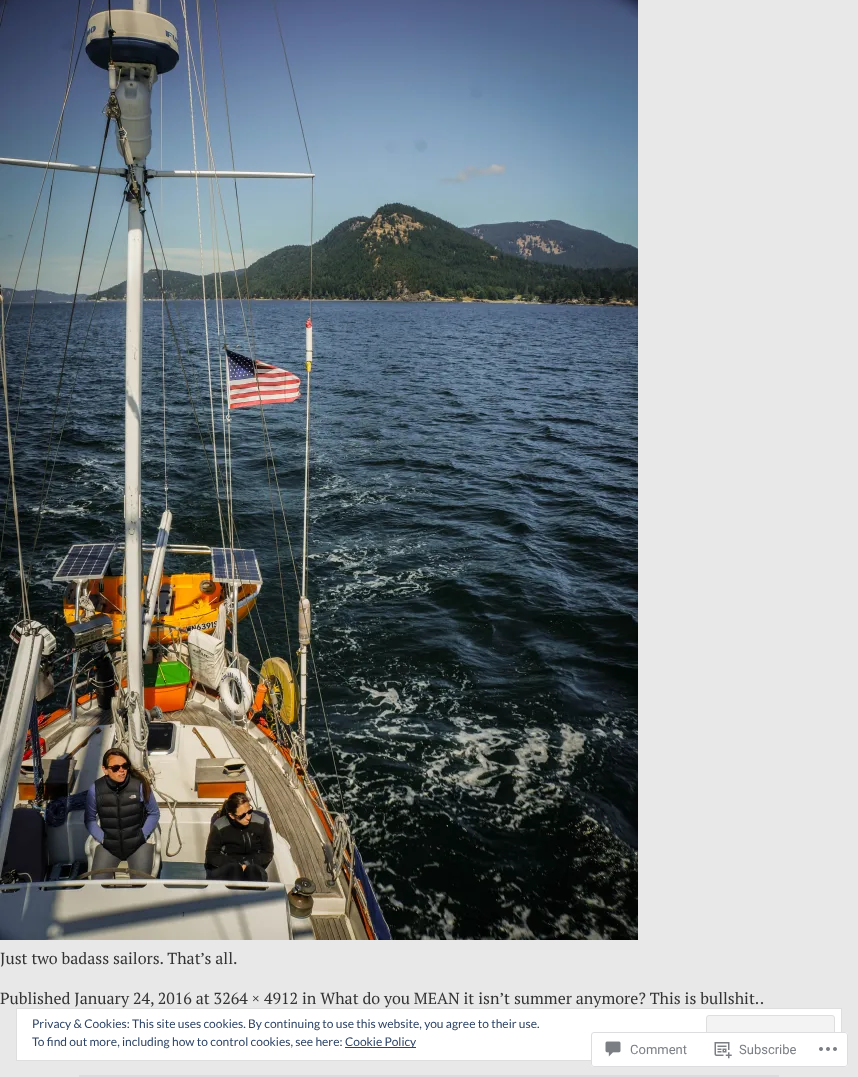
<svg xmlns="http://www.w3.org/2000/svg" width="858" height="1077" viewBox="0 0 858 1077">
  <style>
    .t1 { font: 16px PT Serif; fill: #333; }
    .t2 { font: 12px Lato; fill: #2e4467; }
    .t3 { font: 13px Roboto; fill: #7b7f85; }
  </style>
  <rect width="100%" height="100%" fill="#e8e8e8"/>
  <image x="0" y="0" width="638" height="940" href="images/1.png"/>
  <text x="0" y="964" class="t1">Just two badass sailors. That’s all.</text>
  <text x="0" y="1004" class="t1">Published January 24, 2016 at 3264 × 4912 in What do you MEAN it isn’t summer anymore? This is bullshit..</text>
  <rect x="79" y="1075" width="700" height="2" fill="#dcdcde"/>
  <rect x="16.5" y="1008.5" width="825" height="52" fill="#fff" stroke="#dedede"/>
  <text x="32" y="1028" class="t2">Privacy &amp; Cookies: This site uses cookies. By continuing to use this website, you agree to their use.</text>
  <rect x="706.5" y="1015.5" width="128" height="38" rx="2.5" fill="#f3f3f3" stroke="#dedede"/>
  <text x="32" y="1046" class="t2">To find out more, including how to control cookies, see here:</text>
  <rect x="345" y="1047" width="71" height="1" fill="#2e4467"/>
  <text x="345" y="1046" class="t2">Cookie Policy</text>
  <rect x="591" y="1032" width="257" height="35" rx="3" fill="#fffffffa"/>
  <rect x="591.5" y="1032.5" width="256" height="34" rx="2.5" fill="none" stroke="#dcdcdefa"/>
  <image x="605" y="1041" width="16" height="16" href="images/2.png"/>
  <text x="630" y="1054" class="t3">Comment</text>
  <image x="714" y="1042" width="18" height="17" href="images/3.png"/>
  <text x="739" y="1054" class="t3">Subscribe</text>
  <image x="819" y="1047" width="18" height="4" href="images/4.png"/>
</svg>
